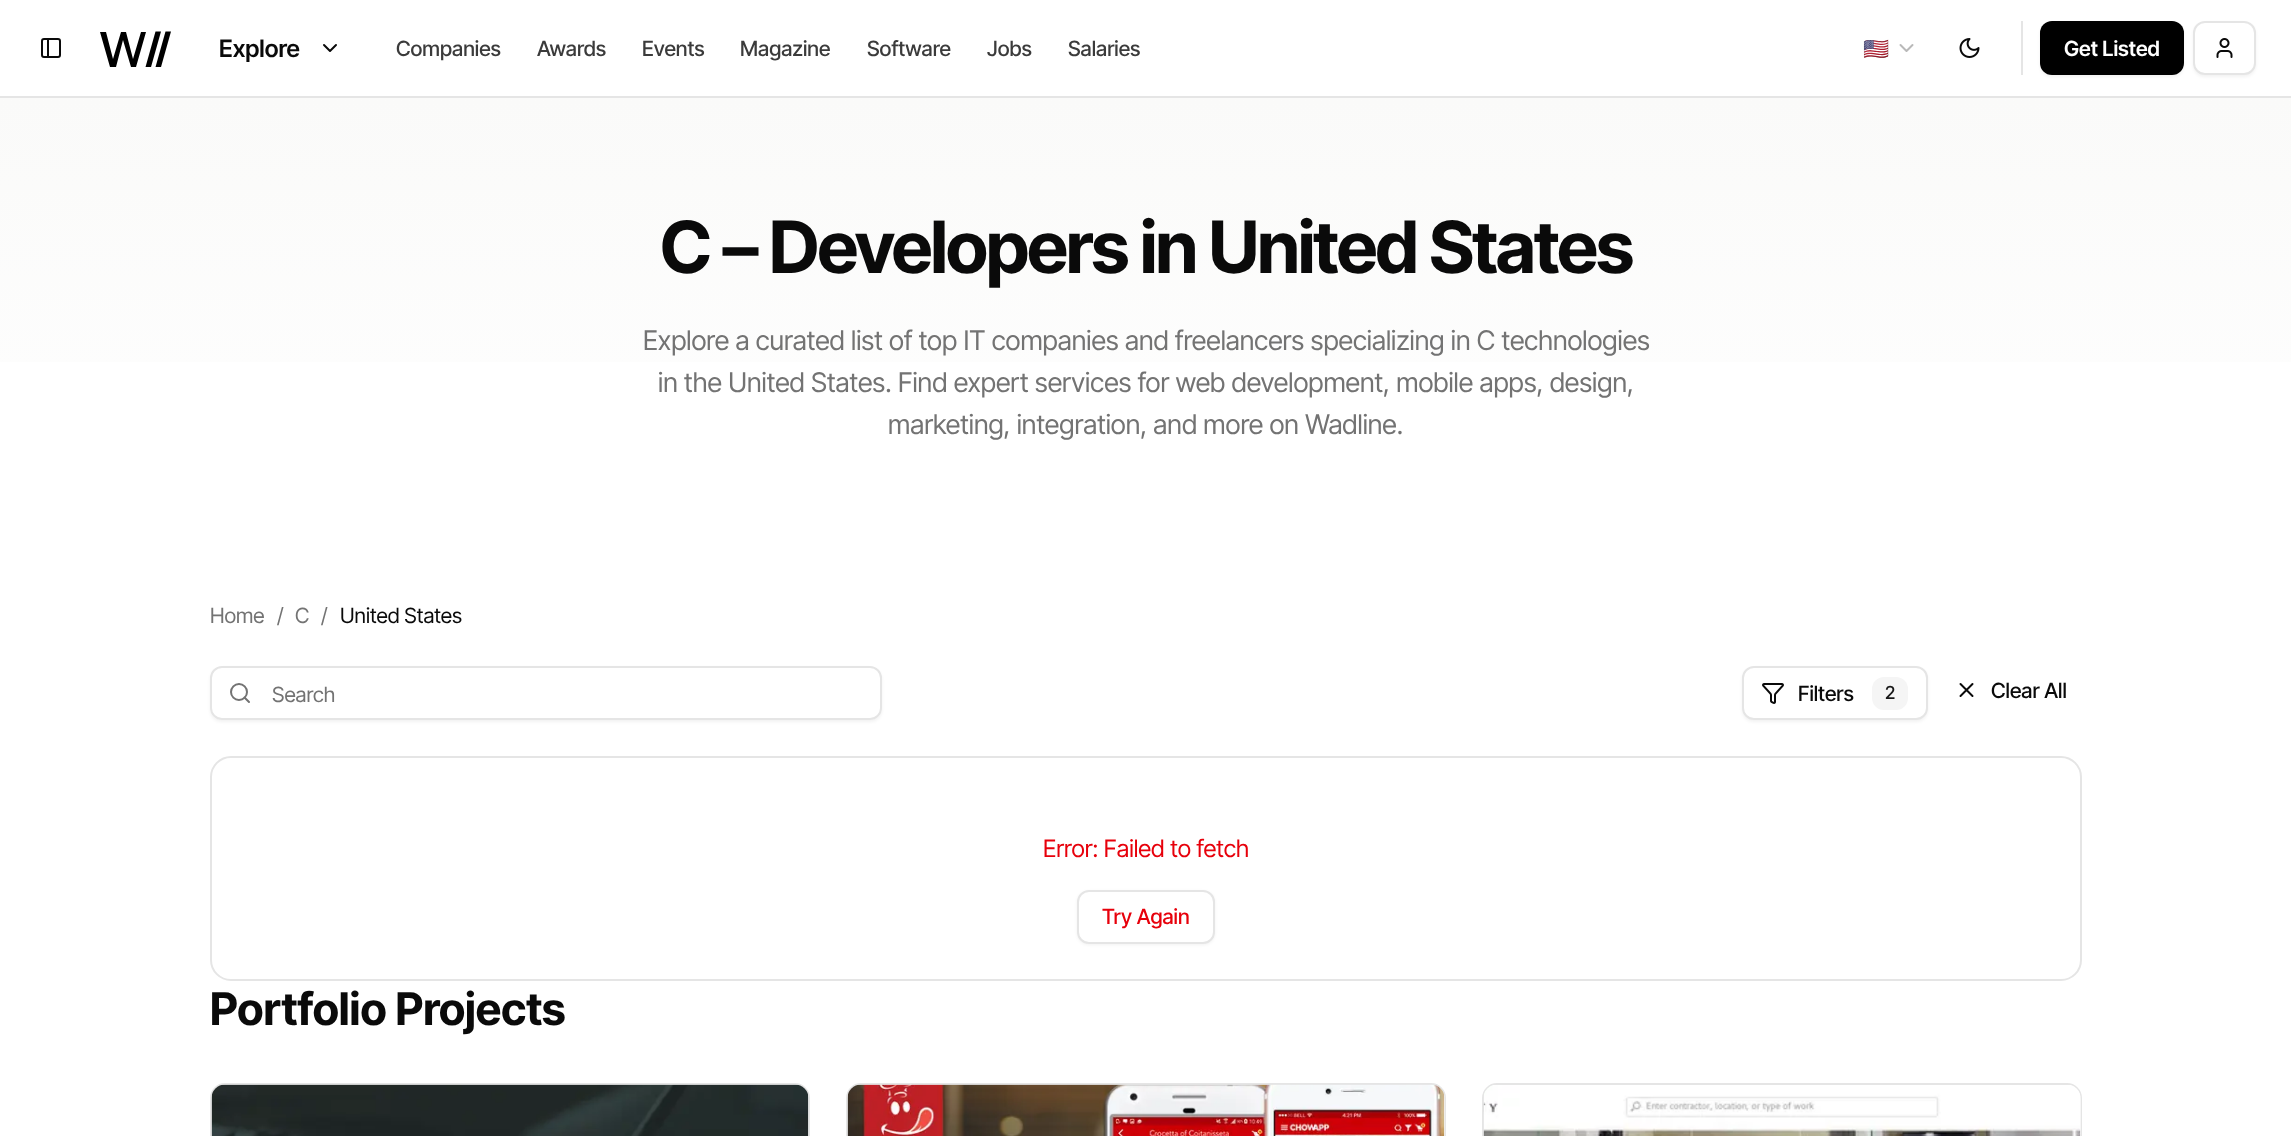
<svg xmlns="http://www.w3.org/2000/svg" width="2291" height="1136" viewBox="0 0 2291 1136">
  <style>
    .t1 { font: 600 24px Inter Tight; fill: #0a0a0a; }
    .t2 { font: 500 21px Inter Tight; fill: #3b3b3b; }
    .t3 { font: 21px Noto Color Emoji; fill: #0a0a0a; }
    .t4 { font: 600 21px Inter Tight; fill: #fff; }
    .t5 { font: bold 72px Inter Tight; letter-spacing: -1.8px; fill: #0a0a0a; }
    .t6 { font: 27px Inter Tight; fill: #737373; }
    .t7 { font: 21px Inter Tight; fill: #737373; }
    .t8 { font: 21px Inter Tight; fill: #0a0a0a; }
    .t9 { font: 500 21px Inter Tight; fill: #0a0a0a; }
    .t10 { font: 500 18px Inter Tight; fill: #171717; }
    .t11 { font: 24px Inter Tight; fill: #e7000b; }
    .t12 { font: 500 21px Inter Tight; fill: #e7000b; }
    .t13 { font: bold 45px Inter Tight; fill: #0a0a0a; }
  </style>
  <defs>
    <clipPath id="clip1"><rect x="1863" y="33" width="26" height="30"/></clipPath>
    <linearGradient id="g1" gradientUnits="userSpaceOnUse" x1="1146" y1="97" x2="1146" y2="552"><stop offset="0" stop-color="#fafaf9"/><stop offset="1" stop-color="#fff"/></linearGradient>
    <clipPath id="clip2"><path d="M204 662H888V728H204ZM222 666H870C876.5 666 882 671.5 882 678V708C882 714.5 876.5 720 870 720H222C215.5 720 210 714.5 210 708V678C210 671.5 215.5 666 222 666Z" clip-rule="evenodd"/></clipPath>
  </defs>
  <rect width="100%" height="100%" fill="#fff"/>
  <rect x="0" y="96" width="2291" height="2" fill="#e5e5e5"/>
  <rect x="42" y="39" width="18" height="18" rx="2" fill="none" stroke="#0a0a0a" stroke-width="2"/>
  <path d="M48 39V57" fill="none" stroke="#0a0a0a" stroke-width="2" stroke-linecap="round" stroke-linejoin="round"/>
  <path d="M110 67L100 32H106L113 59L121 32H126L133 59L141 32H146L136 67H131L123 40L116 67Z" fill="#000"/>
  <path d="M161 31.5H155.5L145.5 67H151Z" fill="#000"/>
  <path d="M171 31.5H165.5L155.5 67H161Z" fill="#000"/>
  <text x="219" y="57" class="t1">Explore</text>
  <path d="M324 45L330 51L336 45" fill="none" stroke="#0a0a0a" stroke-width="2" stroke-linecap="round" stroke-linejoin="round"/>
  <text x="396" y="56" class="t2">Companies</text>
  <text x="537" y="56" class="t2">Awards</text>
  <text x="642" y="56" class="t2">Events</text>
  <text x="740" y="56" class="t2">Magazine</text>
  <text x="867" y="56" class="t2">Software</text>
  <text x="987" y="56" class="t2">Jobs</text>
  <text x="1068" y="56" class="t2">Salaries</text>
  <g clip-path="url(#clip1)">
    <text x="1863" y="56" class="t3">🇺🇸</text>
  </g>
  <path d="M1900.5 45L1906.5 51L1912.5 45" fill="none" stroke="#b9b9b9" stroke-width="2" stroke-linecap="round" stroke-linejoin="round"/>
  <image x="1959" y="38" width="21" height="20" href="images/1.png"/>
  <rect x="2021" y="21" width="2" height="54" fill="#e5e5e5"/>
  <rect x="2040" y="23" width="144" height="54" rx="12" fill="#0000000d" filter="blur(1.5px)"/>
  <rect x="2040" y="21" width="144" height="54" rx="12" fill="#000"/>
  <text x="2064" y="56" class="t4">Get Listed</text>
  <rect x="2193" y="23" width="63" height="54" rx="12" fill="#0000000d" filter="blur(1.5px)"/>
  <rect x="2194" y="22" width="61" height="52" rx="11" fill="#fff" stroke="#e5e5e5" stroke-width="2"/>
  <image x="2216" y="38" width="17" height="20" href="images/2.png"/>
  <rect x="0" y="98" width="2291" height="264" fill="url(#g1)"/>
  <text x="660" y="273" class="t5">C – Developers in United States</text>
  <text x="643" y="350" class="t6">Explore a curated list of top IT companies and freelancers specializing in C technologies</text>
  <text x="658" y="392" class="t6">in the United States. Find expert services for web development, mobile apps, design,</text>
  <text x="888" y="434" class="t6">marketing, integration, and more on Wadline.</text>
  <text x="210" y="623" class="t7">Home</text>
  <text x="277" y="623" class="t7">/</text>
  <text x="295" y="623" class="t7">C</text>
  <text x="321" y="623" class="t7">/</text>
  <text x="340" y="623" class="t8">United States</text>
  <g clip-path="url(#clip2)">
    <rect x="210" y="668" width="672" height="54" rx="12" fill="#0000000d" filter="blur(1.5px)"/>
  </g>
  <rect x="211" y="667" width="670" height="52" rx="11" fill="none" stroke="#e5e5e5" stroke-width="2"/>
  <path d="M249 702L244.5 697.5" fill="none" stroke="#737373" stroke-width="2" stroke-linecap="round" stroke-linejoin="round"/>
  <circle cx="239" cy="692" r="8" fill="none" stroke="#737373" stroke-width="2"/>
  <text x="272" y="702" class="t7">Search</text>
  <rect x="1742" y="668" width="186" height="54" rx="12" fill="#0000000d" filter="blur(1.5px)"/>
  <rect x="1743" y="667" width="184" height="52" rx="11" fill="#fff" stroke="#e5e5e5" stroke-width="2"/>
  <image x="1762" y="683" width="22" height="21" href="images/3.png"/>
  <text x="1798" y="701" class="t9">Filters</text>
  <rect x="1872" y="677" width="36" height="33" rx="12" fill="#f5f5f5"/>
  <text x="1885" y="699" class="t10">2</text>
  <path d="M1972.5 684L1960.5 696M1960.5 684L1972.5 696" fill="none" stroke="#0a0a0a" stroke-width="2" stroke-linecap="round" stroke-linejoin="round"/>
  <text x="1991" y="698" class="t9">Clear All</text>
  <rect x="211" y="757" width="1870" height="223" rx="20" fill="none" stroke="#e5e5e5" stroke-width="2"/>
  <text x="1043" y="857" class="t11">Error: Failed to fetch</text>
  <rect x="1077" y="891" width="138" height="54" rx="12" fill="#0000000d" filter="blur(1.5px)"/>
  <rect x="1078" y="891" width="136" height="52" rx="11" fill="#fff" stroke="#e5e5e5" stroke-width="2"/>
  <text x="1102" y="924" class="t12">Try Again</text>
  <text x="210" y="1025" class="t13">Portfolio Projects</text>
  <rect x="211" y="1084" width="598" height="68" rx="14" fill="none" stroke="#e5e5e5" stroke-width="2"/>
  <path d="M226 1085H795C802.5 1085 809 1091.5 809 1099V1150H212V1099C212 1091.5 218.5 1085 226 1085Z" fill="#f5f5f5"/>
  <image x="211" y="1084" width="598" height="52" href="images/4.png"/>
  <rect x="847" y="1084" width="598" height="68" rx="14" fill="none" stroke="#e5e5e5" stroke-width="2"/>
  <path d="M862 1085H1431C1438.5 1085 1445 1091.5 1445 1099V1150H848V1099C848 1091.5 854.5 1085 862 1085Z" fill="#f5f5f5"/>
  <image x="847" y="1084" width="598" height="52" href="images/5.png"/>
  <rect x="1483" y="1084" width="598" height="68" rx="14" fill="none" stroke="#e5e5e5" stroke-width="2"/>
  <path d="M1498 1085H2067C2074.5 1085 2081 1091.5 2081 1099V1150H1484V1099C1484 1091.5 1490.5 1085 1498 1085Z" fill="#f5f5f5"/>
  <image x="1483" y="1085" width="598" height="51" href="images/6.png"/>
</svg>
